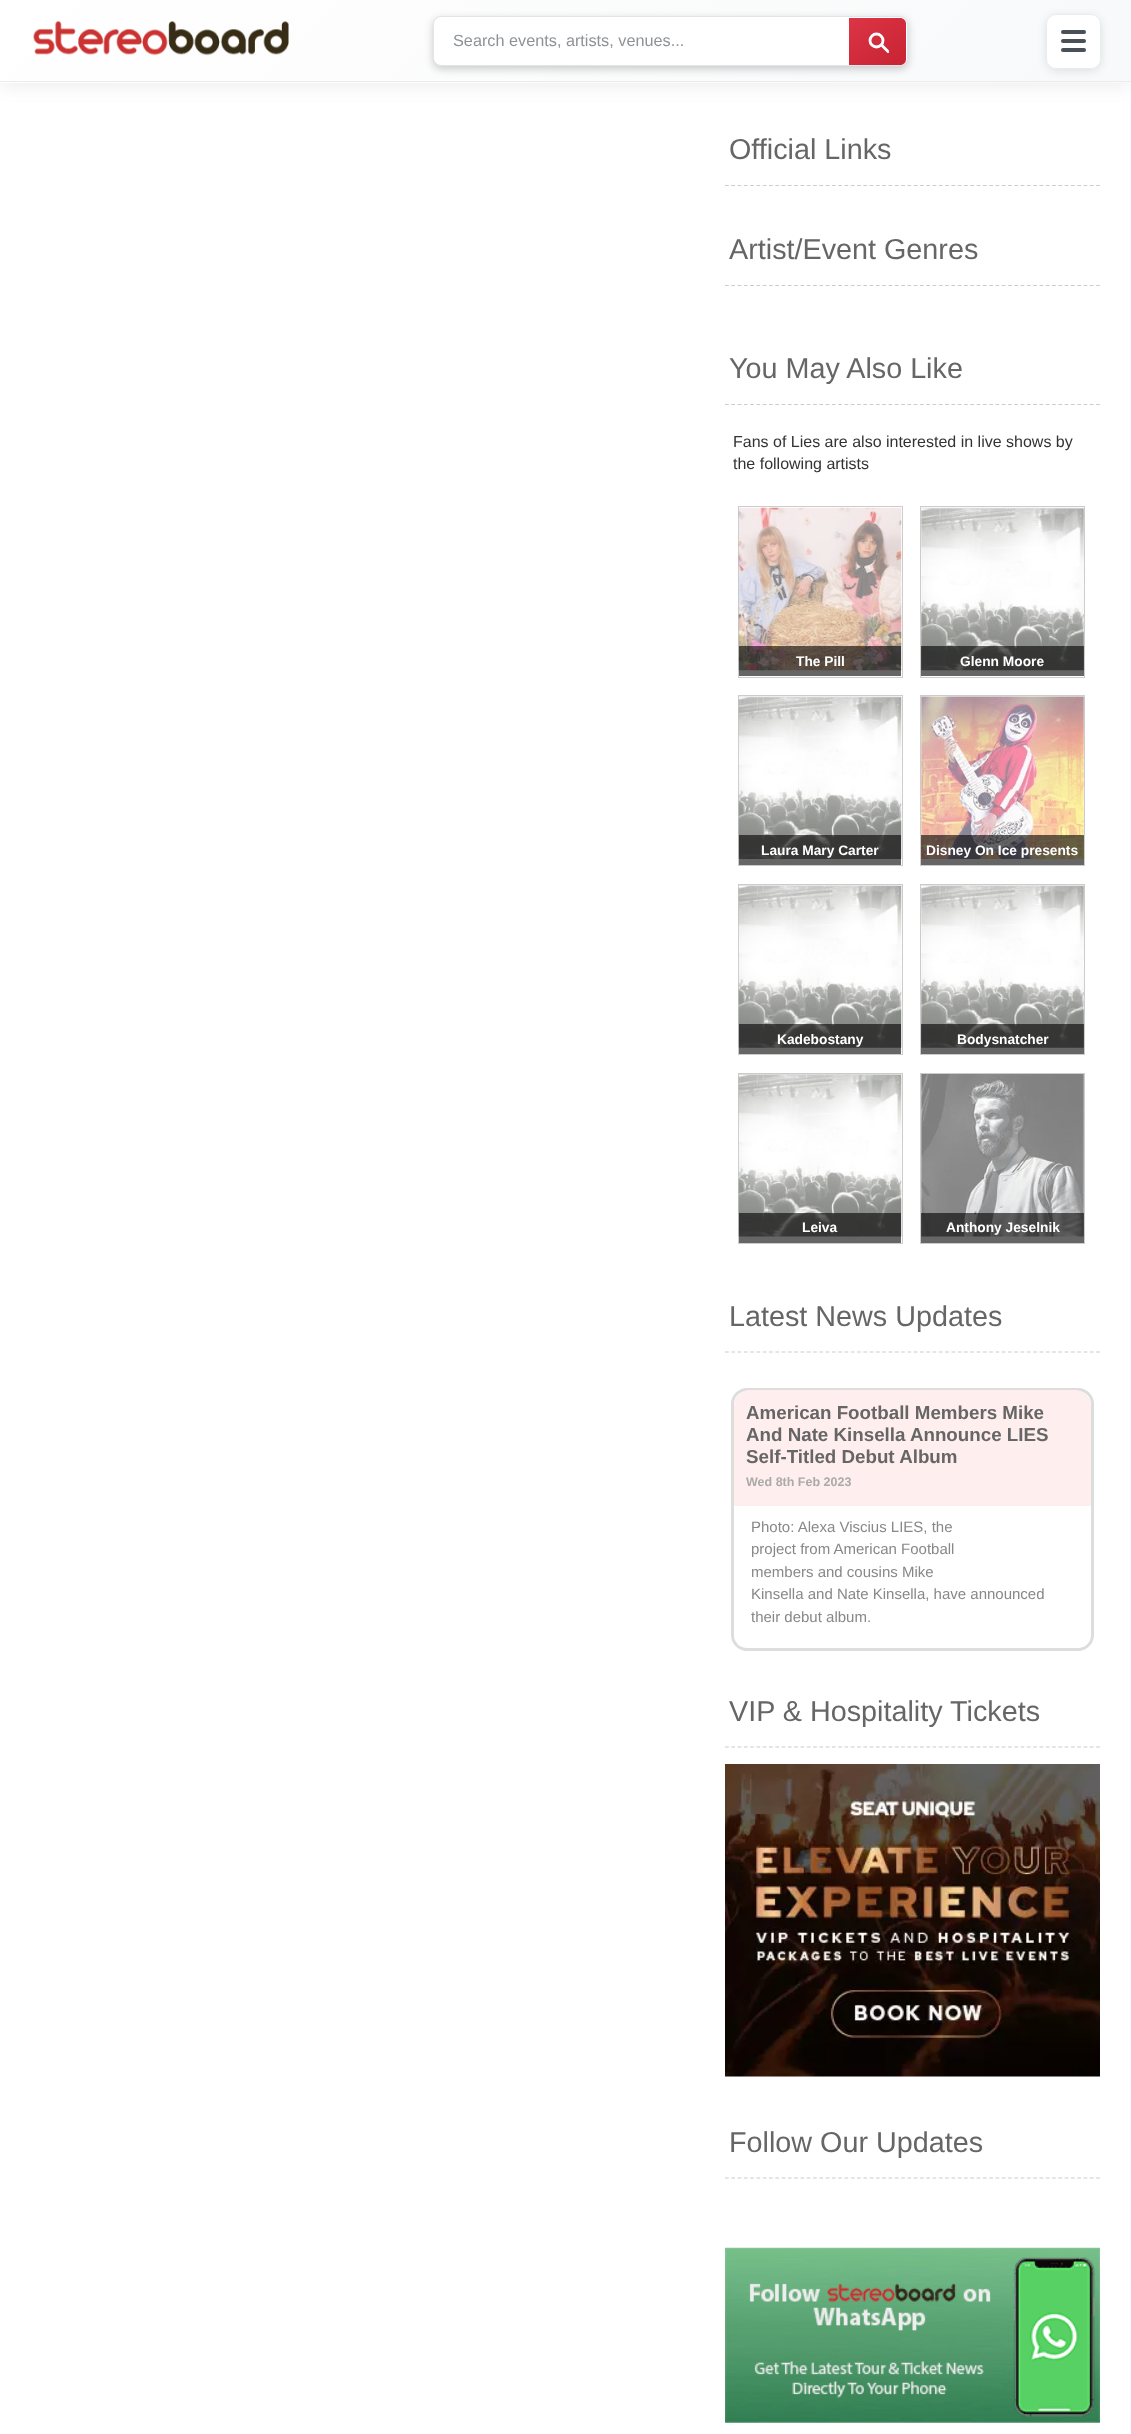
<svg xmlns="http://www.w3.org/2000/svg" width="1131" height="2434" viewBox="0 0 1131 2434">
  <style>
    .t1 { font: 16.25px Liberation Sans; fill: #8e9297; }
    .t2 { font: 28.75px Liberation Sans; fill: #666; }
    .t3 { font: 16px Liberation Sans; fill: #333; }
    .t4 { font: bold 13.75px Liberation Sans; fill: #fff; }
    .t5 { font: bold 18.75px Liberation Sans; fill: #666; }
    .t6 { font: bold 12.5px Liberation Sans; fill: #aaa; }
    .t7 { font: 15px Liberation Sans; fill: #888; }
  </style>
  <defs>
    <linearGradient id="g1" gradientUnits="userSpaceOnUse" x1="262" y1="-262" x2="869" y2="344"><stop offset="0" stop-color="#fff"/><stop offset="1" stop-color="#f8f9fa"/></linearGradient>
    <linearGradient id="g2" gradientUnits="userSpaceOnUse" x1="262" y1="-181" x2="869" y2="425"><stop offset="0" stop-color="#fff"/><stop offset="1" stop-color="#f8f9fa"/></linearGradient>
    <linearGradient id="g3" gradientUnits="userSpaceOnUse" x1="857" y1="12" x2="898" y2="71"><stop offset="0" stop-color="#dc3545"/><stop offset="1" stop-color="#c82333"/></linearGradient>
    <clipPath id="clip1"><rect x="866" y="30" width="23" height="23"/></clipPath>
    <clipPath id="clip2"><path d="M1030 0H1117V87H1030ZM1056 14H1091C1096.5 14 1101 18.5 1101 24V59C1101 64.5 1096.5 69 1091 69H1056C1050.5 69 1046 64.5 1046 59V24C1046 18.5 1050.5 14 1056 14Z" clip-rule="evenodd"/></clipPath>
  </defs>
  <rect width="100%" height="100%" fill="#fff"/>
  <rect x="0" y="3" width="1131" height="82" fill="#00000014" filter="blur(9.5px)"/>
  <rect x="0" y="0" width="1131" height="81" fill="url(#g1)"/>
  <rect x="0" y="82" width="1131" height="1" fill="url(#g2)"/>
  <rect x="0" y="81" width="1131" height="1" fill="#e9ecef"/>
  <image x="33" y="21" width="256" height="35" href="images/1.png"/>
  <rect x="433" y="19" width="475" height="50" rx="8" fill="#00000033" filter="blur(4px)"/>
  <rect x="433.5" y="16.5" width="474" height="49" rx="7.5" fill="#fff" stroke="#e1e5e9"/>
  <text x="453" y="46" class="t1">Search events, artists, venues...</text>
  <path d="M849 18H900C903.5 18 906 20.5 906 24V59C906 62.5 903.5 65 900 65H849Z" fill="url(#g3)"/>
  <circle cx="876.5" cy="40.5" r="6.5" fill="none" stroke="#fff" stroke-width="2.8"/>
  <g clip-path="url(#clip1)">
    <path d="M889 52.5L881 44.5" fill="none" stroke="#fff" stroke-width="2.8"/>
  </g>
  <g clip-path="url(#clip2)">
    <rect x="1046" y="16" width="55" height="55" rx="10" fill="#0000001a" filter="blur(5px)"/>
  </g>
  <rect x="1046.5" y="14.5" width="54" height="54" rx="9.5" fill="#ffffffe6" stroke="#e9ecef"/>
  <rect x="1061" y="30" width="25" height="4" rx="2" fill="#495057"/>
  <rect x="1061" y="39" width="25" height="4" rx="2" fill="#495057"/>
  <rect x="1061" y="48" width="25" height="4" rx="2" fill="#495057"/>
  <path d="M725 185.5H1100" fill="none" stroke="#ccc" stroke-width="1.2" stroke-dasharray="3.75 2.54"/>
  <text x="729" y="159" class="t2">Official Links</text>
  <path d="M725 285.5H1100" fill="none" stroke="#ccc" stroke-width="1.2" stroke-dasharray="3.75 2.54"/>
  <text x="729" y="259" class="t2">Artist/Event Genres</text>
  <path d="M725 404.5H1100" fill="none" stroke="#ccc" stroke-width="1.2" stroke-dasharray="3.75 2.54"/>
  <text x="729" y="378" class="t2">You May Also Like</text>
  <text x="733" y="447" class="t3">Fans of Lies are also interested in live shows by</text>
  <text x="733" y="469" class="t3">the following artists</text>
  <rect x="738.5" y="506.5" width="164" height="171" fill="none" stroke="#ccc"/>
  <image x="738" y="507" width="164" height="164" href="images/2.png"/>
  <rect x="739" y="646" width="162" height="30" fill="#00000099"/>
  <text x="796" y="666" class="t4">The Pill</text>
  <rect x="920.5" y="506.5" width="164" height="171" fill="none" stroke="#ccc"/>
  <image x="921" y="507" width="163" height="164" href="images/3.png"/>
  <rect x="921" y="646" width="163" height="30" fill="#00000099"/>
  <text x="960" y="666" class="t4">Glenn Moore</text>
  <rect x="738.5" y="695.5" width="164" height="170" fill="none" stroke="#ccc"/>
  <image x="738" y="696" width="164" height="163" href="images/4.png"/>
  <rect x="739" y="835" width="162" height="30" fill="#00000099"/>
  <text x="761" y="855" class="t4">Laura Mary Carter</text>
  <rect x="920.5" y="695.5" width="164" height="170" fill="none" stroke="#ccc"/>
  <image x="921" y="696" width="163" height="163" href="images/5.png"/>
  <rect x="921" y="835" width="163" height="30" fill="#00000099"/>
  <text x="926" y="855" class="t4">Disney On Ice presents</text>
  <rect x="738.5" y="884.5" width="164" height="170" fill="none" stroke="#ccc"/>
  <image x="738" y="885" width="164" height="163" href="images/6.png"/>
  <rect x="739" y="1024" width="162" height="30" fill="#00000099"/>
  <text x="777" y="1044" class="t4">Kadebostany</text>
  <rect x="920.5" y="884.5" width="164" height="170" fill="none" stroke="#ccc"/>
  <image x="921" y="885" width="163" height="163" href="images/7.png"/>
  <rect x="921" y="1024" width="163" height="30" fill="#00000099"/>
  <text x="957" y="1044" class="t4">Bodysnatcher</text>
  <rect x="738.5" y="1073.5" width="164" height="170" fill="none" stroke="#ccc"/>
  <image x="738" y="1074" width="164" height="163" href="images/8.png"/>
  <rect x="739" y="1213" width="162" height="30" fill="#00000099"/>
  <text x="802" y="1232" class="t4">Leiva</text>
  <rect x="920.5" y="1073.5" width="164" height="170" fill="none" stroke="#ccc"/>
  <image x="921" y="1074" width="163" height="163" href="images/9.png"/>
  <rect x="921" y="1213" width="163" height="30" fill="#00000099"/>
  <text x="946" y="1232" class="t4">Anthony Jeselnik</text>
  <path d="M725 1352H1100" fill="none" stroke="#ccc" stroke-width="1.2" stroke-dasharray="3.75 2.54"/>
  <text x="729" y="1326" class="t2">Latest News Updates</text>
  <rect x="732.5" y="1389.5" width="360" height="260" rx="14.5" fill="none" stroke="#ddd" stroke-width="3"/>
  <path d="M750 1390H1075C1084 1390 1091 1397 1091 1406V1506H734V1406C734 1397 741 1390 750 1390Z" fill="#fee"/>
  <text x="746" y="1419" class="t5">American Football Members Mike</text>
  <text x="746" y="1441" class="t5">And Nate Kinsella Announce LIES</text>
  <text x="746" y="1463" class="t5">Self-Titled Debut Album</text>
  <text x="746" y="1486" class="t6">Wed 8th Feb 2023</text>
  <text x="751" y="1532" class="t7">Photo: Alexa Viscius LIES, the</text>
  <text x="751" y="1554" class="t7">project from American Football</text>
  <text x="751" y="1577" class="t7">members and cousins Mike</text>
  <text x="751" y="1599" class="t7">Kinsella and Nate Kinsella, have announced</text>
  <text x="751" y="1622" class="t7">their debut album.</text>
  <path d="M725 1747H1100" fill="none" stroke="#ccc" stroke-width="1.2" stroke-dasharray="3.75 2.54"/>
  <text x="729" y="1721" class="t2">VIP &amp; Hospitality Tickets</text>
  <image x="725" y="1764" width="375" height="313" href="images/10.png"/>
  <path d="M725 2178H1100" fill="none" stroke="#ccc" stroke-width="1.2" stroke-dasharray="3.75 2.54"/>
  <text x="729" y="2152" class="t2">Follow Our Updates</text>
  <image x="725" y="2247" width="375" height="176" href="images/11.png"/>
</svg>
